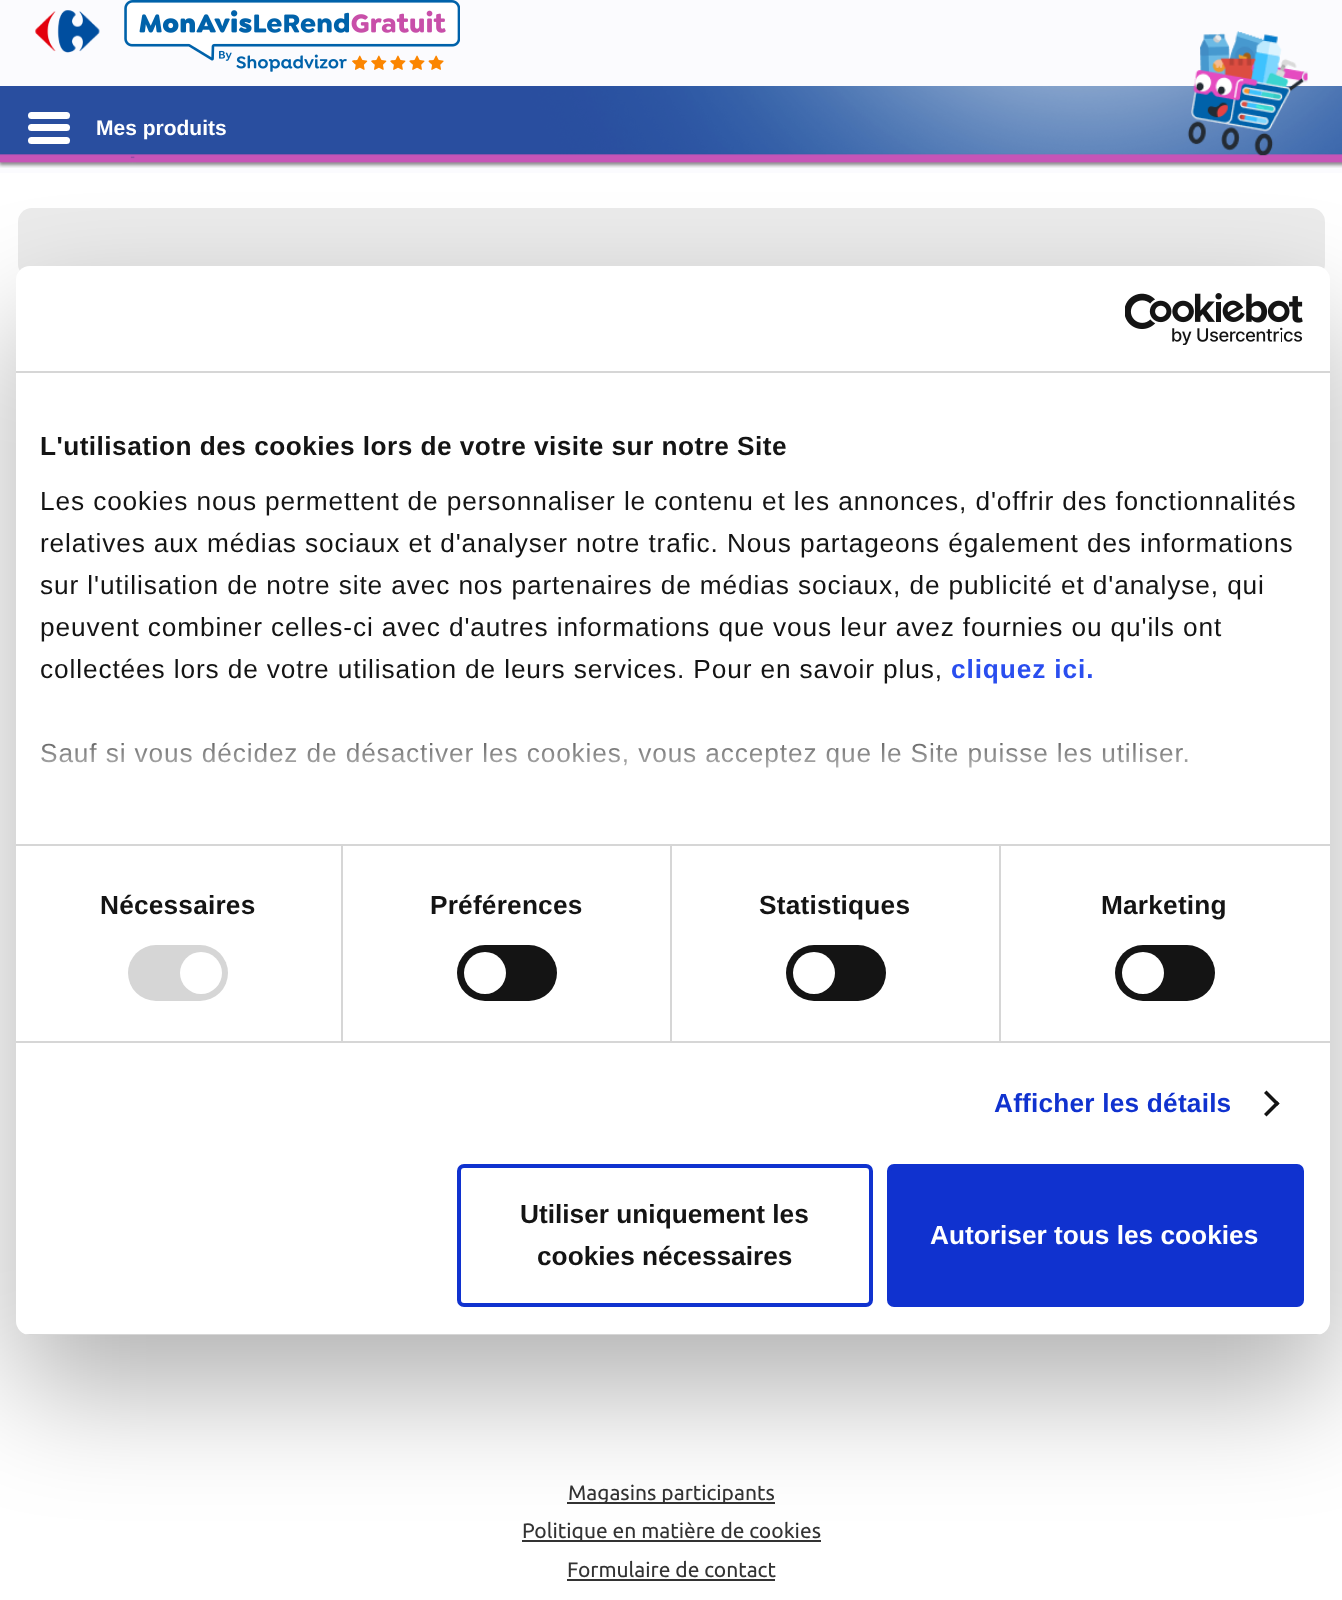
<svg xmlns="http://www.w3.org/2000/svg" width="1342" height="1600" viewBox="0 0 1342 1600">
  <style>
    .t1 { font: bold 21px Liberation Sans; fill: #fff; }
    .t2 { font: 21px Ubuntu; fill: #333; }
    .t3 { font: bold 26.25px Liberation Sans; letter-spacing: 0.45px; fill: #141414; }
    .t4 { font: 26.25px Liberation Sans; letter-spacing: 0.88px; fill: #141414; }
    .t5 { font: bold 26.25px Liberation Sans; letter-spacing: 0.88px; fill: #2a4eef; }
    .t6 { font: bold 26.25px Liberation Sans; letter-spacing: 0.2px; fill: #141414; }
    .t7 { font: bold 26.25px Liberation Sans; letter-spacing: 0.2px; fill: #1032cf; }
    .t8 { font: bold 26.25px Liberation Sans; fill: #141414; }
    .t9 { font: bold 26.25px Liberation Sans; fill: #fff; }
  </style>
  <defs>
    <linearGradient id="g1" gradientUnits="userSpaceOnUse" x1="661" y1="844" x2="661" y2="713"><stop offset="0" stop-color="#fff"/><stop offset="0.5" stop-color="#fff" stop-opacity="0.8"/><stop offset="1" stop-color="#fff" stop-opacity="0"/></linearGradient>
    <clipPath id="clip1"><rect x="16" y="266" width="1314" height="1069" rx="14"/></clipPath>
  </defs>
  <rect width="100%" height="100%" fill="#fbfbfe"/>
  <image x="35" y="10" width="65" height="43" href="images/1.png"/>
  <image x="124" y="0" width="336" height="72" href="images/2.png"/>
  <image x="0" y="86" width="1342" height="82" href="images/3.png"/>
  <rect x="28" y="112" width="42" height="7" rx="3.5" fill="#fff"/>
  <rect x="28" y="124" width="42" height="7" rx="3.5" fill="#fff"/>
  <rect x="28" y="137" width="42" height="7" rx="3.5" fill="#fff"/>
  <text x="96" y="135" class="t1">Mes produits</text>
  <image x="1187" y="31" width="121" height="125" href="images/4.png"/>
  <rect x="0" y="173" width="1342" height="1427" fill="#fff"/>
  <rect x="18" y="208" width="1307" height="70" rx="14" fill="#ebebeb"/>
  <rect x="567" y="1502" width="208" height="2" fill="#333"/>
  <text x="568" y="1500" class="t2">Magasins participants</text>
  <rect x="522" y="1540" width="299" height="2" fill="#333"/>
  <text x="522" y="1538" class="t2">Politique en matière de cookies</text>
  <text x="567" y="1577" class="t2">Formulaire de contact</text>
  <rect x="567" y="1579" width="208" height="2" fill="#333"/>
  <rect x="16" y="322" width="1314" height="1069" rx="14" fill="#0000004d" filter="blur(59.5px)"/>
  <rect x="16" y="266" width="1314" height="1069" rx="14" fill="#fff"/>
  <rect x="16" y="371" width="1314" height="2" fill="#d6d6d6"/>
  <image x="1125" y="293" width="178" height="52" href="images/5.png"/>
  <rect x="341" y="845" width="2" height="196" fill="#d6d6d6"/>
  <rect x="670" y="845" width="2" height="196" fill="#d6d6d6"/>
  <rect x="999" y="845" width="2" height="196" fill="#d6d6d6"/>
  <rect x="16" y="844" width="1314" height="2" fill="#d6d6d6"/>
  <text x="40" y="455" class="t3">L'utilisation des cookies lors de votre visite sur notre Site</text>
  <text x="40" y="510" class="t4">Les cookies nous permettent de personnaliser le contenu et les annonces, d'offrir des fonctionnalités</text>
  <text x="40" y="552" class="t4">relatives aux médias sociaux et d'analyser notre trafic. Nous partageons également des informations</text>
  <text x="40" y="594" class="t4">sur l'utilisation de notre site avec nos partenaires de médias sociaux, de publicité et d'analyse, qui</text>
  <text x="40" y="636" class="t4">peuvent combiner celles-ci avec d'autres informations que vous leur avez fournies ou qu'ils ont</text>
  <text x="40" y="678" class="t4">collectées lors de votre utilisation de leurs services. Pour en savoir plus,</text>
  <text x="951" y="678" class="t5">cliquez ici.</text>
  <text x="40" y="762" class="t4">Sauf si vous décidez de désactiver les cookies, vous acceptez que le Site puisse les utiliser.</text>
  <rect x="41" y="742" width="1147" height="26" fill="url(#g1)"/>
  <rect x="16" y="1041" width="1314" height="2" fill="#d6d6d6"/>
  <text x="100" y="914" class="t6">Nécessaires</text>
  <rect x="128" y="945" width="100" height="56" rx="28" fill="#d6d6d6"/>
  <circle cx="201" cy="973" r="21" fill="#fff"/>
  <text x="430" y="914" class="t6">Préférences</text>
  <rect x="457" y="945" width="100" height="56" rx="28" fill="#141414"/>
  <circle cx="485" cy="973" r="21" fill="#fff"/>
  <text x="759" y="914" class="t6">Statistiques</text>
  <rect x="786" y="945" width="100" height="56" rx="28" fill="#141414"/>
  <circle cx="814" cy="973" r="21" fill="#fff"/>
  <text x="1101" y="914" class="t6">Marketing</text>
  <rect x="1115" y="945" width="100" height="56" rx="28" fill="#141414"/>
  <circle cx="1143" cy="973" r="21" fill="#fff"/>
  <text x="994" y="1112" class="t7">Afficher les détails</text>
  <path d="M1266.5 1090.5L1279.5 1103.5L1277 1106L1264 1093Z" fill="#141414"/>
  <path d="M1277 1101L1279.5 1103.5L1266.5 1116.5L1264 1114Z" fill="#141414"/>
  <g clip-path="url(#clip1)">
    <rect x="25" y="1334" width="1296" height="1" fill="#d6d6d6"/>
  </g>
  <rect x="459" y="1166" width="412" height="139" rx="5" fill="none" stroke="#1032cf" stroke-width="4"/>
  <text x="520" y="1223" class="t8">Utiliser uniquement les</text>
  <text x="537" y="1265" class="t8">cookies nécessaires</text>
  <rect x="889" y="1166" width="413" height="139" rx="5" fill="#1032cf" stroke="#1032cf" stroke-width="4"/>
  <text x="930" y="1244" class="t9">Autoriser tous les cookies</text>
</svg>
